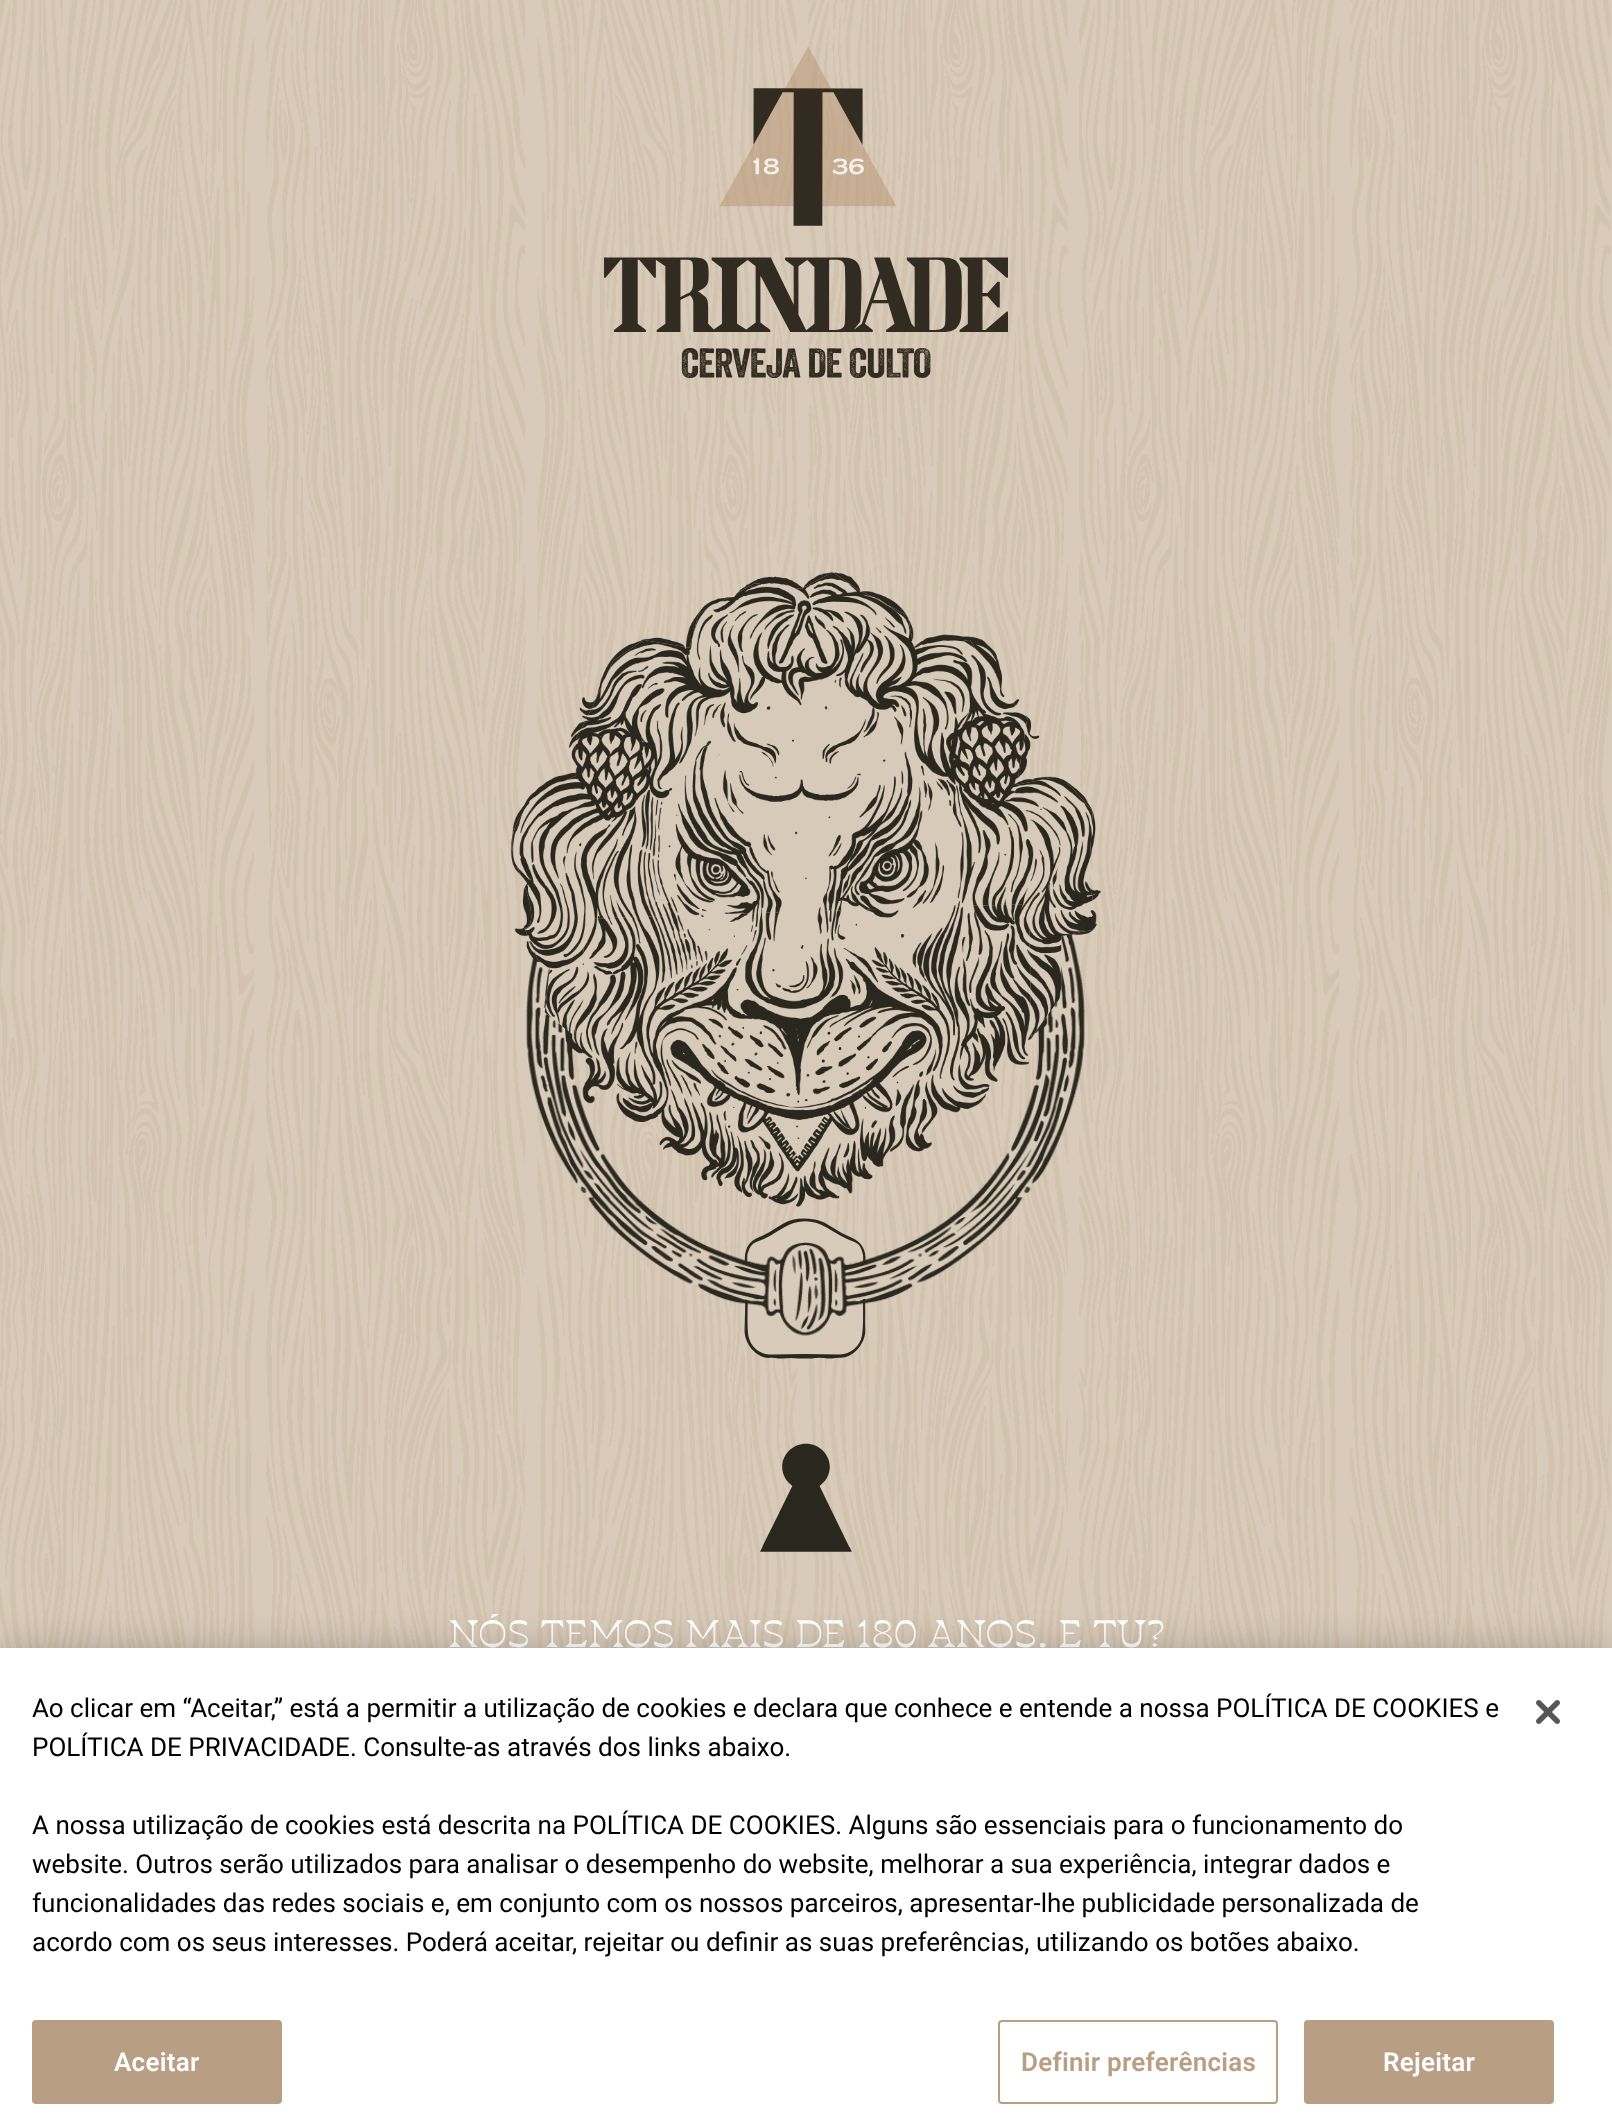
<svg xmlns="http://www.w3.org/2000/svg" width="1612" height="2124" viewBox="0 0 1612 2124">
  <style>
    .t1 { font: 900 38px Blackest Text; fill: #fff; }
    .t2 { font: 26.02px Roboto; fill: #000; }
    .t3 { font: 600 26.02px Roboto; letter-spacing: 0.25px; fill: #fff; }
    .t4 { font: 600 26.02px Roboto; letter-spacing: 0.25px; fill: #b89f83; }
  </style>
  <rect width="100%" height="100%" fill="#d8cbba"/>
  <image x="0" y="0" width="1611" height="1648" href="images/1.png"/>
  <image x="511" y="572" width="590" height="980" href="images/2.png"/>
  <image x="604" y="47" width="404" height="331" href="images/3.png"/>
  <text x="448" y="1647" class="t1">NÓS TEMOS MAIS DE 180 ANOS. E TU?</text>
  <rect x="0" y="1648" width="1612" height="476" fill="#00000033" filter="blur(18px)"/>
  <rect x="0" y="1648" width="1612" height="476" fill="#fff"/>
  <text x="32" y="1717" class="t2">Ao clicar em “Aceitar,” está a permitir a utilização de cookies e declara que conhece e entende a nossa POLÍTICA DE COOKIES e</text>
  <text x="32" y="1756" class="t2">POLÍTICA DE PRIVACIDADE. Consulte-as através dos links abaixo.</text>
  <text x="32" y="1834" class="t2">A nossa utilização de cookies está descrita na POLÍTICA DE COOKIES. Alguns são essenciais para o funcionamento do</text>
  <text x="32" y="1873" class="t2">website. Outros serão utilizados para analisar o desempenho do website, melhorar a sua experiência, integrar dados e</text>
  <text x="32" y="1912" class="t2">funcionalidades das redes sociais e, em conjunto com os nossos parceiros, apresentar-lhe publicidade personalizada de</text>
  <text x="32" y="1951" class="t2">acordo com os seus interesses. Poderá aceitar, rejeitar ou definir as suas preferências, utilizando os botões abaixo.</text>
  <rect x="33" y="2021" width="248" height="82" rx="3" fill="#b89f83" stroke="#b89f83" stroke-width="2"/>
  <text x="114" y="2071" class="t3">Aceitar</text>
  <rect x="999" y="2021" width="278" height="82" rx="3" fill="none" stroke="#b89f83" stroke-width="2"/>
  <text x="1021" y="2071" class="t4">Definir preferências</text>
  <rect x="1305" y="2021" width="248" height="82" rx="3" fill="#b89f83" stroke="#b89f83" stroke-width="2"/>
  <text x="1383" y="2071" class="t3">Rejeitar</text>
  <image x="1536" y="1700" width="24" height="24" href="images/4.png"/>
</svg>
